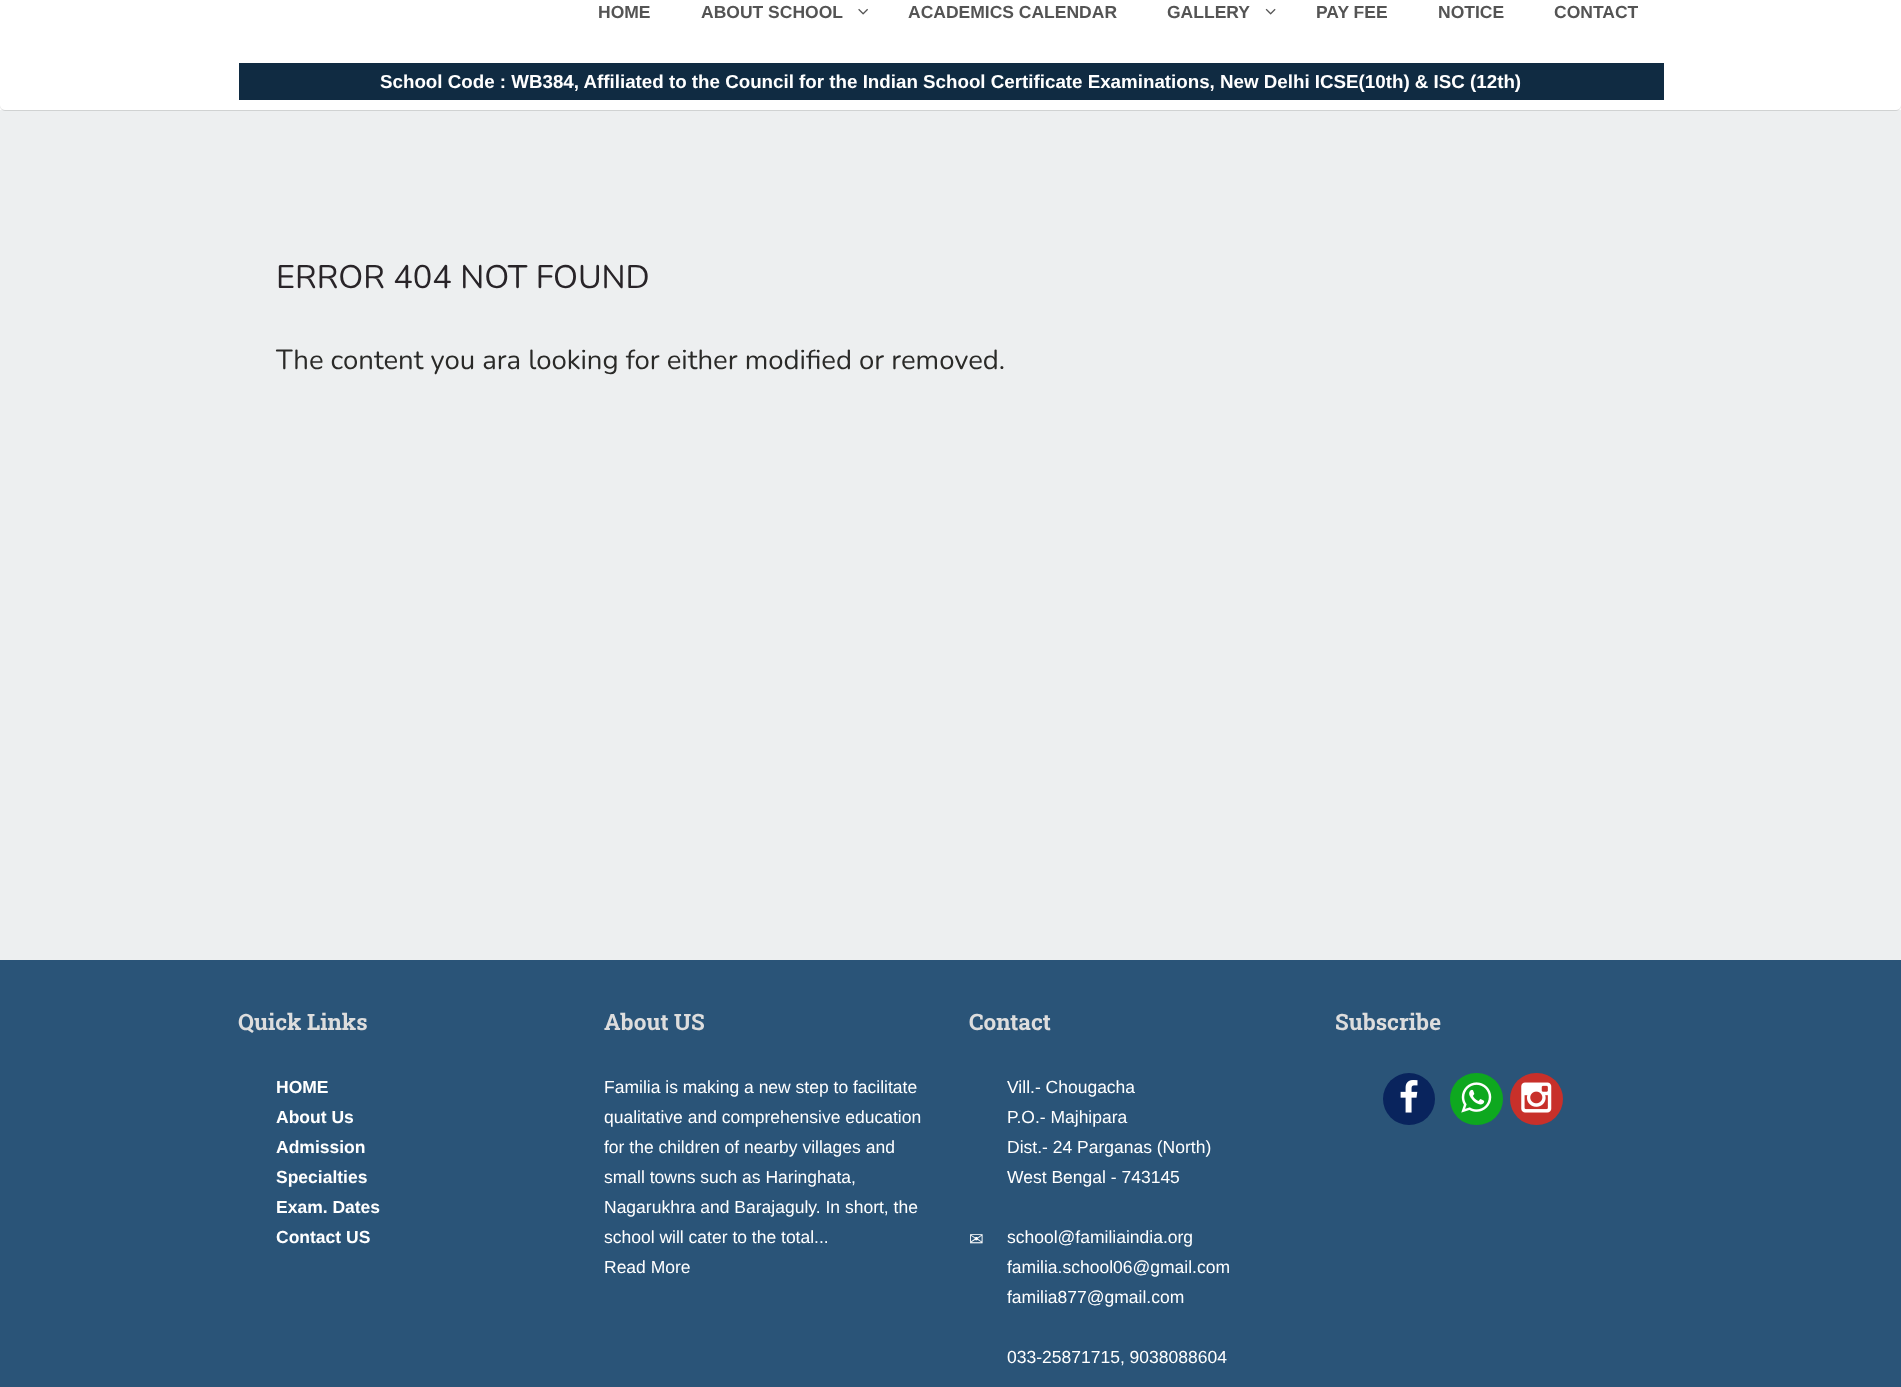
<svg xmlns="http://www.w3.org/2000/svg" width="1901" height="1387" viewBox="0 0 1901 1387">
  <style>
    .t1 { font: bold 17.5px Liberation Sans; fill: #545454; }
    .t2 { font: bold 18.75px Liberation Sans; fill: #fff; }
    .t3 { font: 32.5px Nunito; fill: #282428; }
    .t4 { font: 27.5px Nunito; fill: #2a2a28; }
    .t5 { font: bold 22.5px Roboto Slab; fill: #ddd; }
    .t6 { font: bold 17.5px Liberation Sans; fill: #fff; }
    .t7 { font: 17.5px Liberation Sans; fill: #fff; }
    .t8 { font: 17.5px DejaVu Sans; fill: #fff; }
  </style>
  <rect width="100%" height="100%" fill="#fff"/>
  <rect x="0" y="110" width="1901" height="850" fill="#edeff0"/>
  <rect x="0" y="-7" width="1901" height="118" rx="5" fill="#0000001f" filter="blur(0.5px)"/>
  <rect x="0" y="-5" width="1901" height="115" rx="5" fill="#fff"/>
  <text x="598" y="18" class="t1">HOME</text>
  <text x="701" y="18" class="t1">ABOUT SCHOOL</text>
  <image x="858" y="8" width="10" height="7" href="images/1.png"/>
  <text x="908" y="18" class="t1">ACADEMICS CALENDAR</text>
  <text x="1167" y="18" class="t1">GALLERY</text>
  <image x="1265" y="8" width="11" height="7" href="images/2.png"/>
  <text x="1316" y="18" class="t1">PAY FEE</text>
  <text x="1438" y="18" class="t1">NOTICE</text>
  <text x="1554" y="18" class="t1">CONTACT</text>
  <rect x="239" y="63" width="1425" height="37" fill="#102b42"/>
  <text x="380" y="88" class="t2">School Code : WB384, Affiliated to the Council for the Indian School Certificate Examinations, New Delhi ICSE(10th) &amp; ISC (12th)</text>
  <text x="276" y="288" class="t3">ERROR 404 NOT FOUND</text>
  <text x="276" y="369" class="t4">The content you ara looking for either modified or removed.</text>
  <rect x="0" y="960" width="1901" height="427" fill="#2a5478"/>
  <text x="238" y="1030" class="t5">Quick Links</text>
  <text x="276" y="1093" class="t6">HOME</text>
  <text x="276" y="1123" class="t6">About Us</text>
  <text x="276" y="1153" class="t6">Admission</text>
  <text x="276" y="1183" class="t6">Specialties</text>
  <text x="276" y="1213" class="t6">Exam. Dates</text>
  <text x="276" y="1243" class="t6">Contact US</text>
  <text x="604" y="1030" class="t5">About US</text>
  <text x="604" y="1093" class="t7">Familia is making a new step to facilitate</text>
  <text x="604" y="1123" class="t7">qualitative and comprehensive education</text>
  <text x="604" y="1153" class="t7">for the children of nearby villages and</text>
  <text x="604" y="1183" class="t7">small towns such as Haringhata,</text>
  <text x="604" y="1213" class="t7">Nagarukhra and Barajaguly. In short, the</text>
  <text x="604" y="1243" class="t7">school will cater to the total...</text>
  <text x="604" y="1273" class="t7">Read More</text>
  <text x="969" y="1030" class="t5">Contact</text>
  <text x="1007" y="1093" class="t7">Vill.- Chougacha</text>
  <text x="1007" y="1123" class="t7">P.O.- Majhipara</text>
  <text x="1007" y="1153" class="t7">Dist.- 24 Parganas (North)</text>
  <text x="1007" y="1183" class="t7">West Bengal - 743145</text>
  <text x="969" y="1245" class="t8">✉</text>
  <text x="1007" y="1243" class="t7">school@familiaindia.org</text>
  <text x="1007" y="1273" class="t7">familia.school06@gmail.com</text>
  <text x="1007" y="1303" class="t7">familia877@gmail.com</text>
  <text x="1007" y="1363" class="t7">033-25871715, 9038088604</text>
  <text x="1335" y="1030" class="t5">Subscribe</text>
  <circle cx="1409" cy="1099" r="26" fill="#09245d"/>
  <image x="1400" y="1080" width="18" height="33" href="images/3.png"/>
  <rect x="1450" y="1073" width="53" height="52" rx="26" fill="#0ea81f"/>
  <image x="1461" y="1082" width="31" height="31" href="images/4.png"/>
  <rect x="1510" y="1073" width="53" height="52" rx="26" fill="#c8302a"/>
  <image x="1521" y="1082" width="31" height="31" href="images/5.png"/>
</svg>
